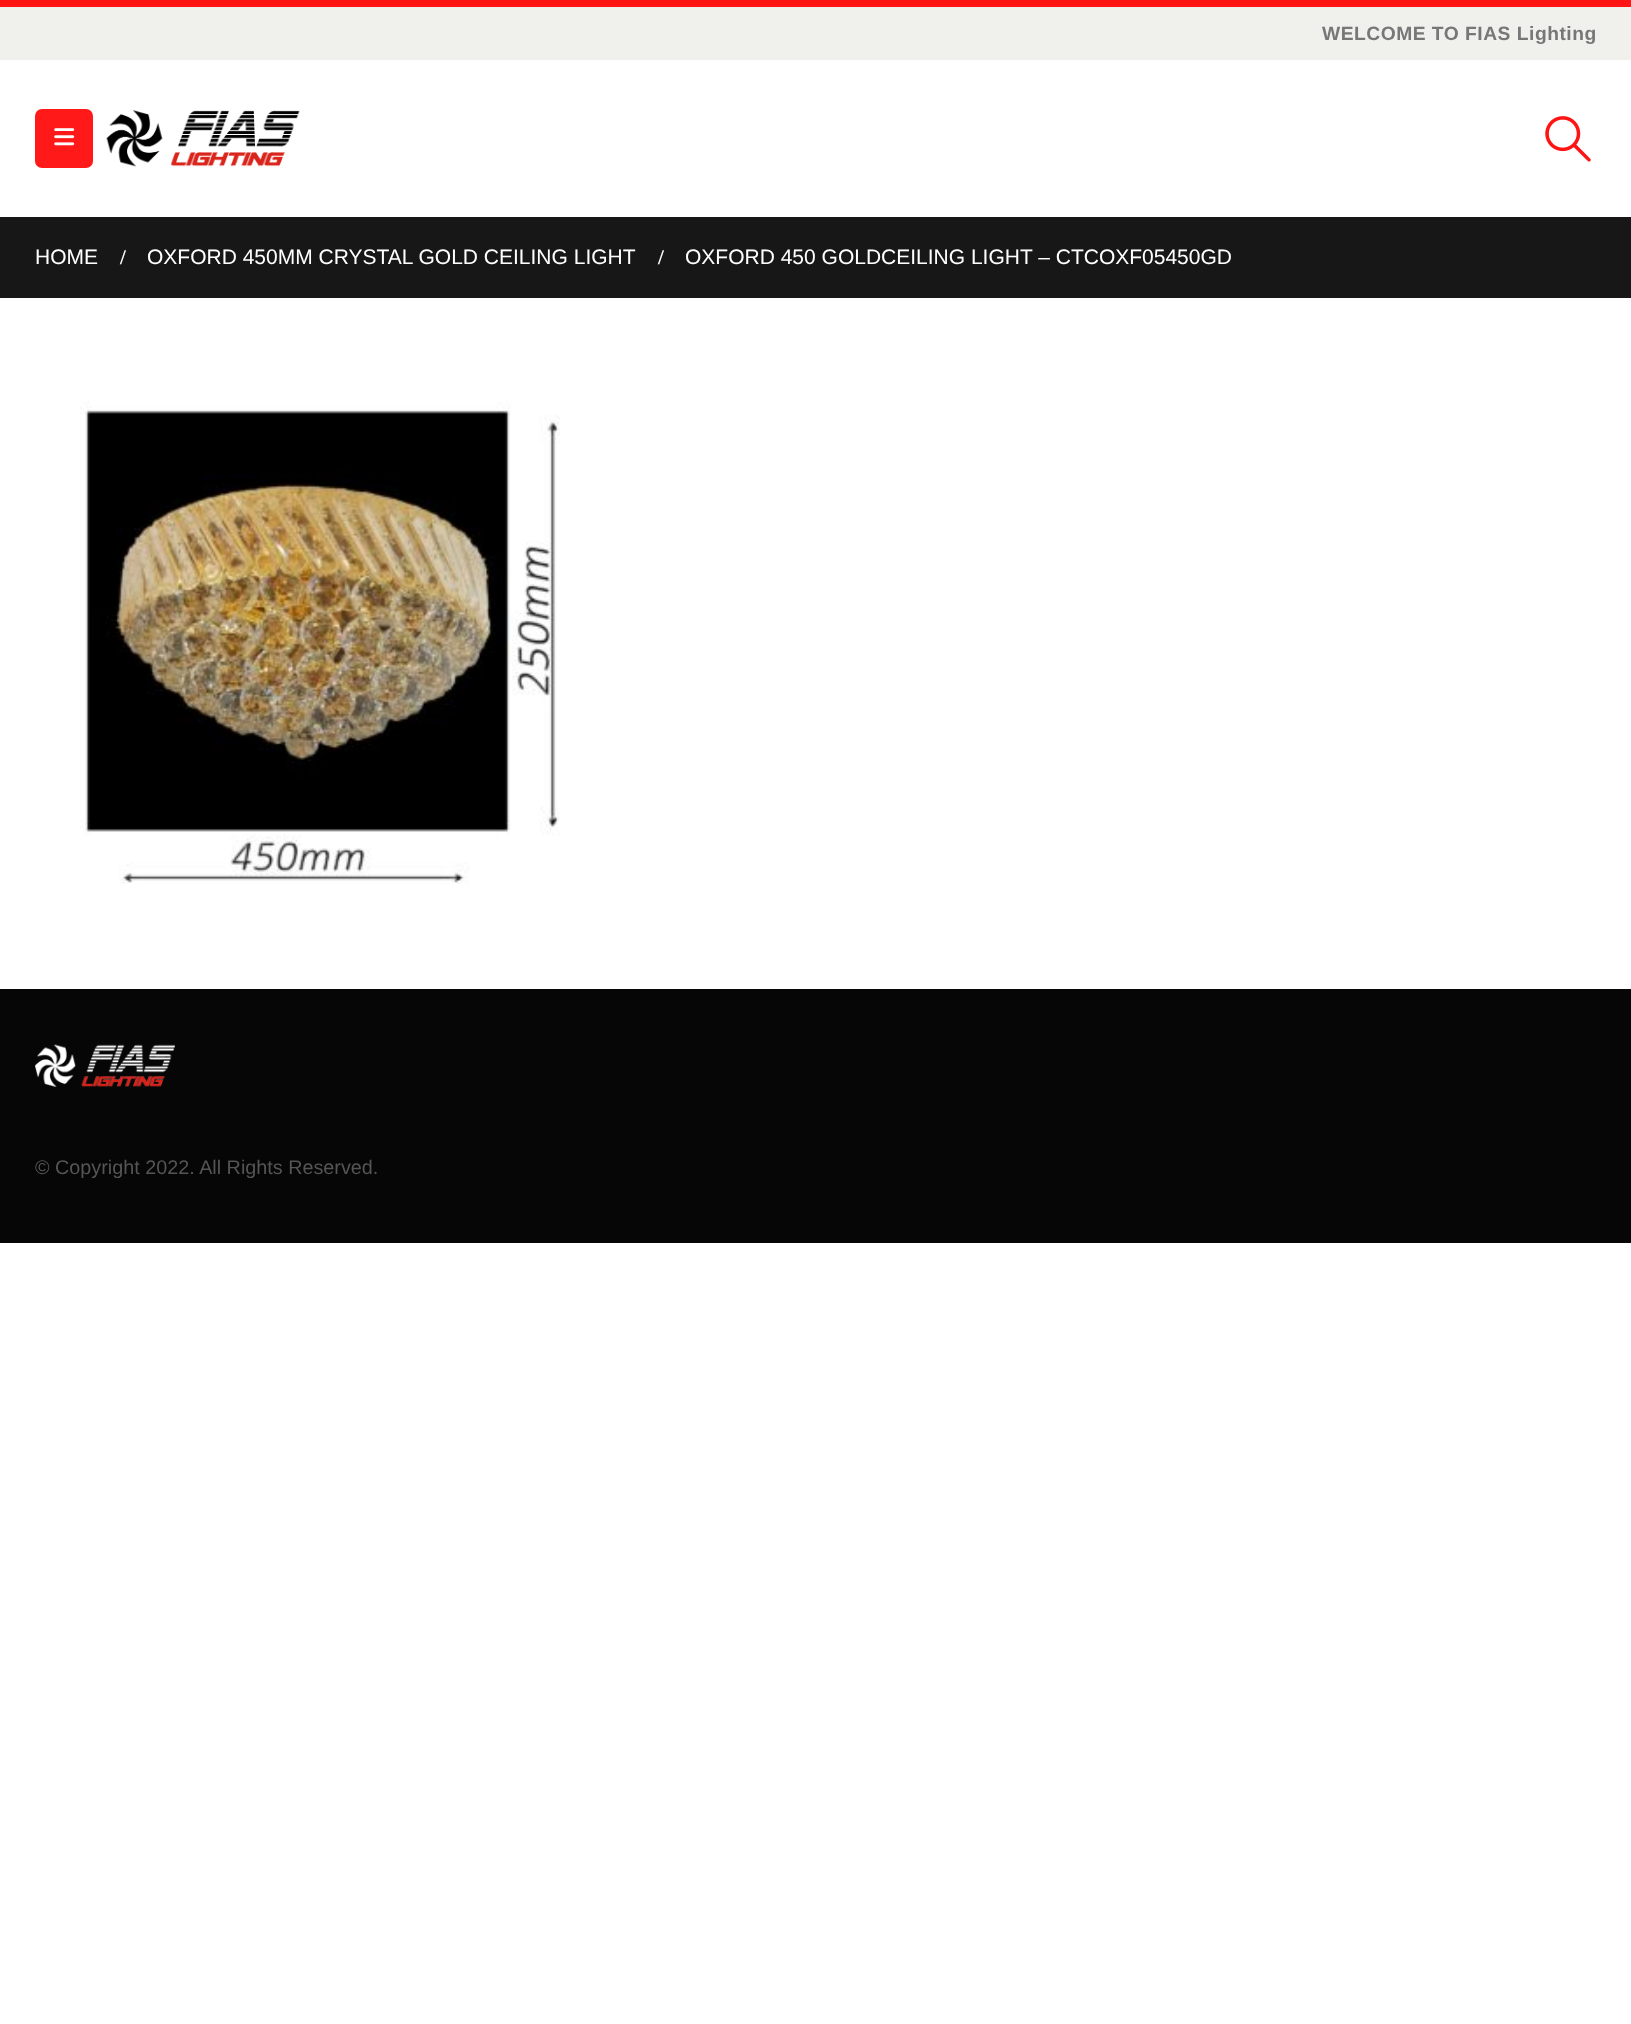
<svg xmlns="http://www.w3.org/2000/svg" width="1631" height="2024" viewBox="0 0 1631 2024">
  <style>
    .t1 { font: bold 19.25px Liberation Sans; letter-spacing: 0.5px; fill: #777; }
    .t2 { font: 21px Liberation Sans; fill: #fff; }
    .t3 { font: bold 21px Liberation Serif; fill: #fff; }
    .t4 { font: 19.8px Liberation Sans; fill: #555; }
  </style>
  <rect width="100%" height="100%" fill="#fff"/>
  <rect x="0" y="0" width="1631" height="7" fill="#ff1414"/>
  <rect x="0" y="7" width="1631" height="53" fill="#f0f0ed"/>
  <text x="1322" y="40" class="t1">WELCOME TO FIAS Lighting</text>
  <rect x="35" y="109" width="58" height="59" rx="7" fill="#ff1919"/>
  <image x="54" y="128" width="21" height="18" href="images/1.png"/>
  <image x="106" y="110" width="194" height="57" href="images/2.png"/>
  <image x="1545" y="116" width="46" height="46" href="images/3.png"/>
  <rect x="0" y="217" width="1631" height="81" fill="#171717"/>
  <text x="35" y="264" class="t2">HOME</text>
  <text x="120" y="264" class="t3">/</text>
  <text x="147" y="264" class="t2">OXFORD 450MM CRYSTAL GOLD CEILING LIGHT</text>
  <text x="658" y="264" class="t3">/</text>
  <text x="685" y="264" class="t2">OXFORD 450 GOLDCEILING LIGHT – CTCOXF05450GD</text>
  <image x="80" y="401" width="480" height="483" href="images/4.png"/>
  <rect x="0" y="989" width="1631" height="254" fill="#060606"/>
  <image x="35" y="1044" width="140" height="43" href="images/5.png"/>
  <text x="35" y="1174" class="t4">© Copyright 2022. All Rights Reserved.</text>
</svg>
